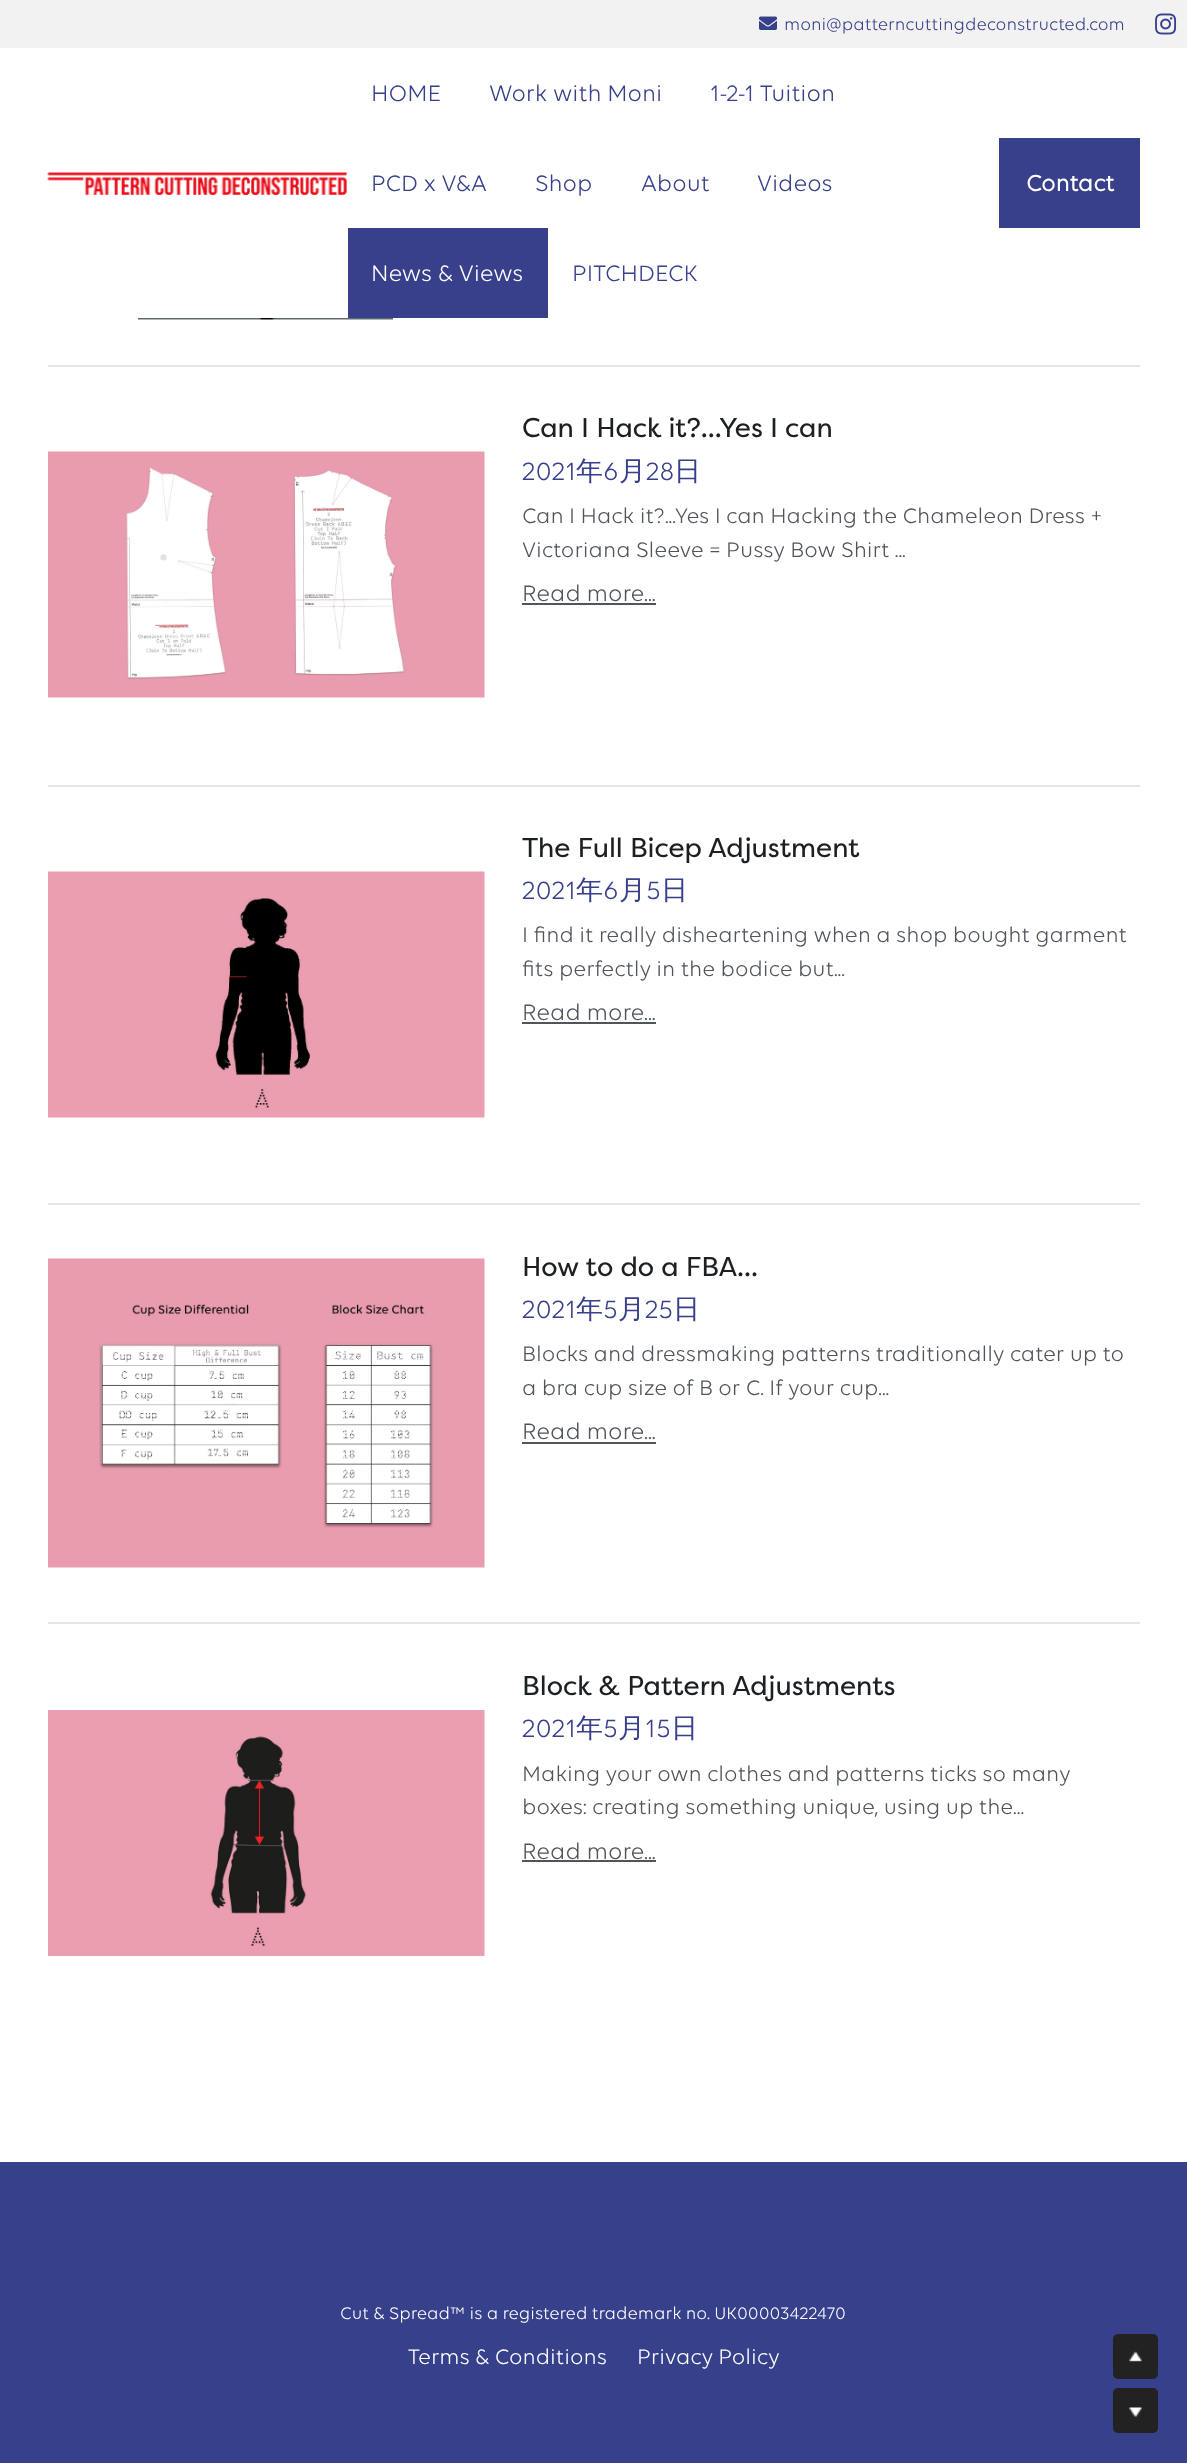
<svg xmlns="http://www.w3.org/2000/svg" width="1187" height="2463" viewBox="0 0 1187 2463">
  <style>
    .t1 { font: 18px 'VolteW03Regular'; fill: #38408b; }
    .t2 { font: 24px 'VolteW03Regular'; fill: #38408b; }
    .t3 { font: 24px 'VolteW03Regular'; fill: #fff; }
    .t4 { font: bold 24px 'VolteW03Regular'; fill: #fff; }
    .t5 { font: 27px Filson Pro; fill: #1d2023; }
    .t6 { font: 27px 'VolteW03Regular'; fill: #38408b; }
    .t7 { font: 500 27px WenQuanYi Zen Hei; fill: #38408b; }
    .t8 { font: 22.5px 'VolteW03Regular'; fill: #50555c; }
    .t9 { font: 24px 'VolteW03Regular'; fill: #50555c; }
    .t10 { font: 18px 'VolteW03Regular'; fill: #fff; }
    .t11 { font: 22.5px 'VolteW03Regular'; fill: #fff; }
  </style>
  <rect width="100%" height="100%" fill="#fff"/>
  <rect x="0" y="0" width="1187" height="48" fill="#f2f2f2"/>
  <image x="759" y="16" width="18" height="14" href="images/1.png"/>
  <text x="784" y="30" class="t1">moni@patterncuttingdeconstructed.com</text>
  <image x="1155" y="13" width="22" height="22" href="images/2.png"/>
  <image x="47" y="172" width="300" height="23" href="images/3.png"/>
  <text x="371" y="101" class="t2">HOME</text>
  <text x="489" y="101" class="t2">Work with Moni</text>
  <text x="710" y="101" class="t2">1-2-1 Tuition</text>
  <text x="371" y="191" class="t2">PCD x V&amp;A</text>
  <text x="535" y="191" class="t2">Shop</text>
  <text x="641" y="191" class="t2">About</text>
  <text x="757" y="191" class="t2">Videos</text>
  <rect x="348" y="228" width="200" height="90" fill="#38408b"/>
  <text x="371" y="281" class="t3">News &amp; Views</text>
  <text x="572" y="281" class="t2">PITCHDECK</text>
  <rect x="999" y="138" width="141" height="90" fill="#38408b"/>
  <text x="1026" y="191" class="t4">Contact</text>
  <rect x="48" y="365" width="1092" height="2" fill="#e6e6e6"/>
  <image x="138" y="318" width="255" height="2" href="images/4.png"/>
  <rect x="48" y="785" width="1092" height="2" fill="#e6e6e6"/>
  <image x="48" y="451" width="437" height="247" href="images/5.png"/>
  <text x="522" y="437" class="t5">Can I Hack it?...Yes I can</text>
  <text x="522" y="480" class="t6">2021</text>
  <text x="576" y="480" class="t7">年</text>
  <text x="603" y="480" class="t6">6</text>
  <text x="619" y="480" class="t7">月</text>
  <text x="646" y="480" class="t6">28</text>
  <text x="674" y="480" class="t7">日</text>
  <text x="522" y="523" class="t8">Can I Hack it?...Yes I can Hacking the Chameleon Dress +</text>
  <text x="522" y="557" class="t8">Victoriana Sleeve = Pussy Bow Shirt ...</text>
  <text x="522" y="601" class="t9">Read more...</text>
  <rect x="522" y="603" width="134" height="2" fill="#50555c"/>
  <rect x="48" y="1203" width="1092" height="2" fill="#e6e6e6"/>
  <image x="48" y="871" width="437" height="247" href="images/6.png"/>
  <text x="522" y="857" class="t5">The Full Bicep Adjustment</text>
  <text x="522" y="899" class="t6">2021</text>
  <text x="576" y="899" class="t7">年</text>
  <text x="603" y="899" class="t6">6</text>
  <text x="619" y="899" class="t7">月</text>
  <text x="646" y="899" class="t6">5</text>
  <text x="661" y="899" class="t7">日</text>
  <text x="522" y="942" class="t8">I find it really disheartening when a shop bought garment</text>
  <text x="522" y="976" class="t8">fits perfectly in the bodice but...</text>
  <text x="522" y="1020" class="t9">Read more...</text>
  <rect x="522" y="1022" width="134" height="2" fill="#50555c"/>
  <rect x="48" y="1622" width="1092" height="2" fill="#e6e6e6"/>
  <image x="48" y="1258" width="437" height="310" href="images/7.png"/>
  <text x="522" y="1276" class="t5">How to do a FBA...</text>
  <text x="522" y="1318" class="t6">2021</text>
  <text x="576" y="1318" class="t7">年</text>
  <text x="603" y="1318" class="t6">5</text>
  <text x="618" y="1318" class="t7">月</text>
  <text x="645" y="1318" class="t6">25</text>
  <text x="673" y="1318" class="t7">日</text>
  <text x="522" y="1361" class="t8">Blocks and dressmaking patterns traditionally cater up to</text>
  <text x="522" y="1395" class="t8">a bra cup size of B or C. If your cup...</text>
  <text x="522" y="1439" class="t9">Read more...</text>
  <rect x="522" y="1442" width="134" height="2" fill="#50555c"/>
  <image x="48" y="1710" width="437" height="246" href="images/8.png"/>
  <text x="522" y="1695" class="t5">Block &amp; Pattern Adjustments</text>
  <text x="522" y="1737" class="t6">2021</text>
  <text x="576" y="1737" class="t7">年</text>
  <text x="603" y="1737" class="t6">5</text>
  <text x="618" y="1737" class="t7">月</text>
  <text x="645" y="1737" class="t6">15</text>
  <text x="671" y="1737" class="t7">日</text>
  <text x="522" y="1781" class="t8">Making your own clothes and patterns ticks so many</text>
  <text x="522" y="1814" class="t8">boxes: creating something unique, using up the...</text>
  <text x="522" y="1859" class="t9">Read more...</text>
  <rect x="522" y="1860" width="134" height="2" fill="#50555c"/>
  <rect x="0" y="2162" width="1187" height="301" fill="#37408b"/>
  <text x="340" y="2319" class="t10">Cut &amp; Spread™ is a registered trademark no. UK00003422470</text>
  <text x="408" y="2364" class="t11">Terms &amp; Conditions</text>
  <text x="637" y="2364" class="t11">Privacy Policy</text>
  <rect x="1113" y="2334" width="45" height="45" rx="5" fill="#222"/>
  <image x="1129" y="2351" width="13" height="11" href="images/9.png"/>
  <rect x="1113" y="2388" width="45" height="45" rx="5" fill="#222"/>
  <image x="1129" y="2407" width="13" height="10" href="images/10.png"/>
</svg>
